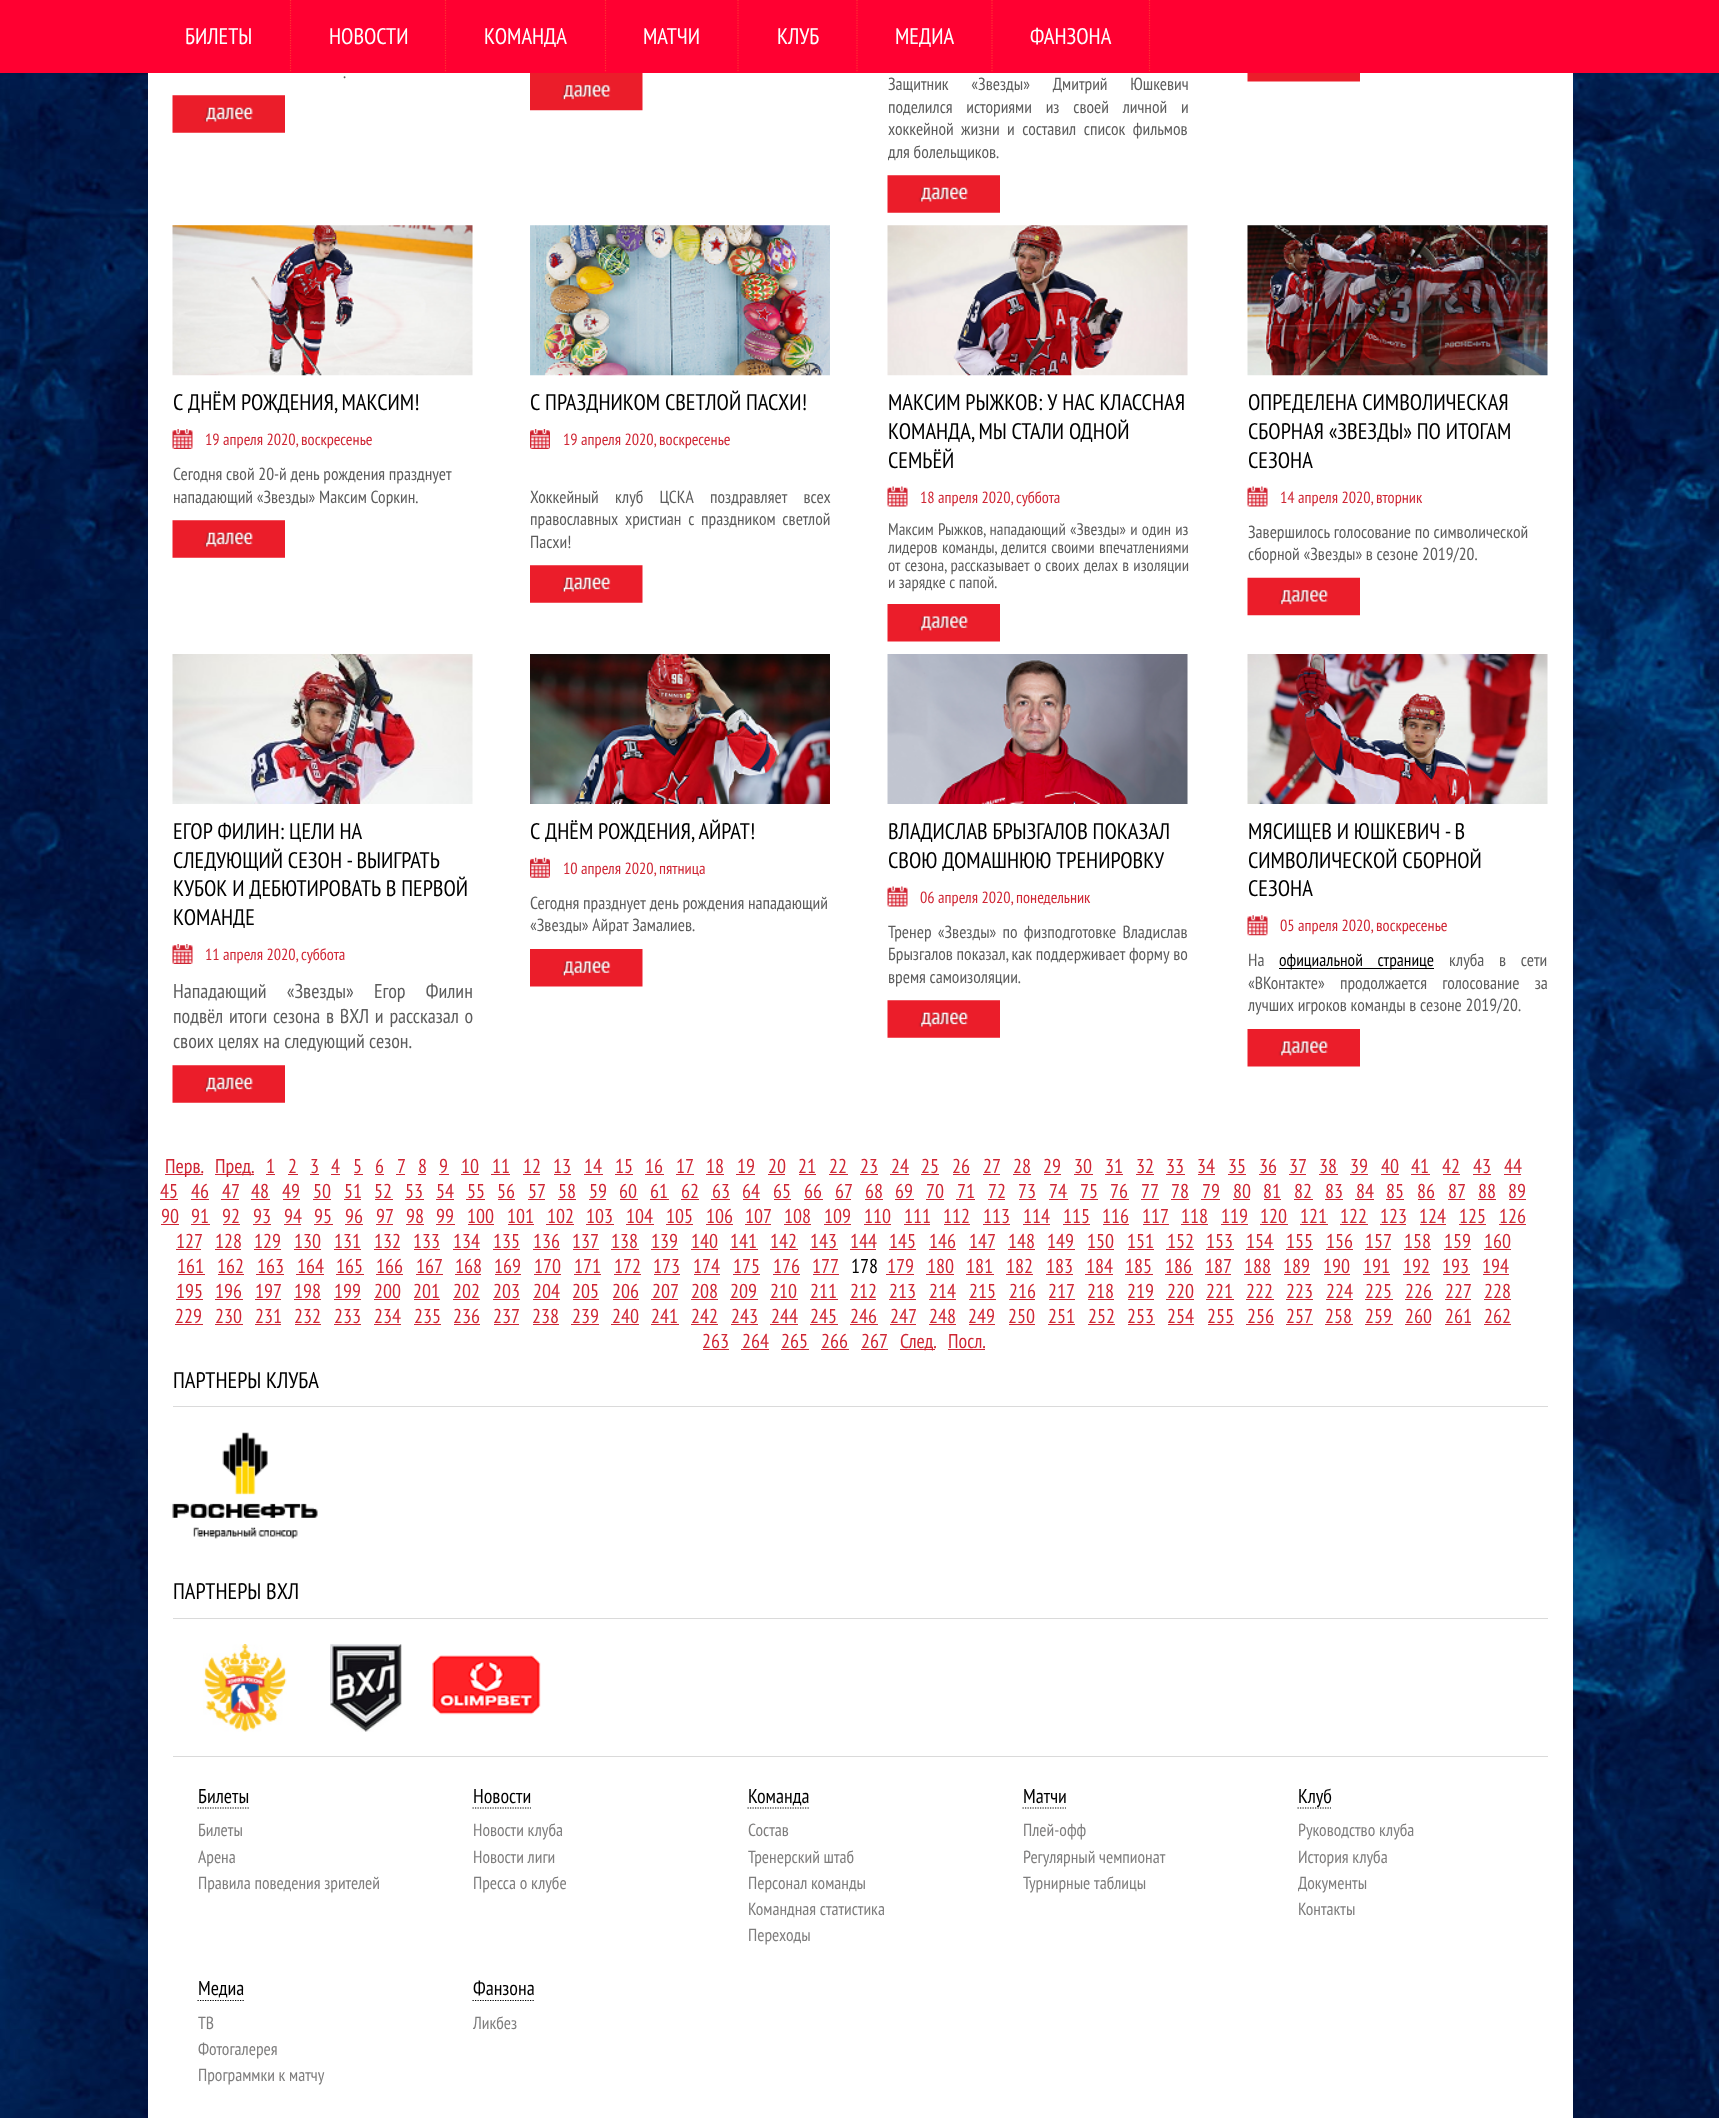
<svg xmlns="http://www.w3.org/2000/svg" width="1719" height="2118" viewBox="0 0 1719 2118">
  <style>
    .t1 { font: 22.5px PT Sans Narrow; fill: #fff; }
    .t2 { font: 17.5px PT Sans Narrow; fill: #5c5c5c; }
    .t3 { font: 22.5px PT Sans Narrow; fill: #000; }
    .t4 { font: 16.25px PT Sans Narrow; fill: #cf2533; }
    .t5 { font: 16.7px PT Sans Narrow; fill: #5c5c5c; }
    .t6 { font: 20px PT Sans Narrow; fill: #5c5c5c; }
    .t7 { font: 17.5px PT Sans Narrow; fill: #000; }
    .t8 { font: 20px PT Sans Narrow; fill: #cf2533; }
    .t9 { font: 20px PT Sans Narrow; fill: #000; }
    .t10 { font: 17.5px PT Sans Narrow; fill: #7e7d7d; }
  </style>
  <rect width="100%" height="100%" fill="#fff"/>
  <image x="0" y="73" width="1719" height="2045" href="images/1.png"/>
  <rect x="0" y="0" width="1719" height="73" fill="#ff0031"/>
  <path d="M290.5 0V72.5" fill="none" stroke="#f33" stroke-width="1.2" stroke-dasharray="1.25 1.25"/>
  <text x="185" y="44" class="t1">БИЛЕТЫ</text>
  <path d="M445.5 0V72.5" fill="none" stroke="#f33" stroke-width="1.2" stroke-dasharray="1.25 1.25"/>
  <text x="329" y="44" class="t1">НОВОСТИ</text>
  <path d="M605.5 0V72.5" fill="none" stroke="#f33" stroke-width="1.2" stroke-dasharray="1.25 1.25"/>
  <text x="484" y="44" class="t1">КОМАНДА</text>
  <path d="M738 0V72.5" fill="none" stroke="#f33" stroke-width="1.2" stroke-dasharray="1.25 1.25"/>
  <text x="643" y="44" class="t1">МАТЧИ</text>
  <path d="M857 0V72.5" fill="none" stroke="#f33" stroke-width="1.2" stroke-dasharray="1.25 1.25"/>
  <text x="777" y="44" class="t1">КЛУБ</text>
  <path d="M992 0V72.5" fill="none" stroke="#f33" stroke-width="1.2" stroke-dasharray="1.25 1.25"/>
  <text x="895" y="44" class="t1">МЕДИА</text>
  <path d="M1149.5 0V72.5" fill="none" stroke="#f33" stroke-width="1.2" stroke-dasharray="1.25 1.25"/>
  <text x="1030" y="44" class="t1">ФАНЗОНА</text>
  <rect x="148" y="73" width="1425" height="2045" fill="#fff"/>
  <text x="343" y="78" class="t2">.</text>
  <image x="172" y="95" width="113" height="38" href="images/2.png"/>
  <image x="530" y="73" width="113" height="38" href="images/3.png"/>
  <text x="888" y="90" word-spacing="19" class="t2">Защитник «Звезды» Дмитрий Юшкевич</text>
  <text x="888" y="113" word-spacing="10" class="t2">поделился историями из своей личной и</text>
  <text x="888" y="135" word-spacing="3.75" class="t2">хоккейной жизни и составил список фильмов</text>
  <text x="888" y="158" class="t2">для болельщиков.</text>
  <image x="887" y="175" width="113" height="38" href="images/2.png"/>
  <image x="1247" y="73" width="113" height="9" href="images/4.png"/>
  <image x="172" y="225" width="301" height="151" href="images/5.png"/>
  <text x="173" y="410" class="t3">С ДНЁМ РОЖДЕНИЯ, МАКСИМ!</text>
  <image x="172" y="429" width="21" height="20" href="images/6.png"/>
  <text x="205" y="445" class="t4">19 апреля 2020, воскресенье</text>
  <text x="173" y="480" class="t2">Сегодня свой 20-й день рождения празднует</text>
  <text x="173" y="503" class="t2">нападающий «Звезды» Максим Соркин.</text>
  <image x="172" y="520" width="113" height="38" href="images/2.png"/>
  <image x="530" y="225" width="300" height="151" href="images/7.png"/>
  <text x="530" y="410" class="t3">С ПРАЗДНИКОМ СВЕТЛОЙ ПАСХИ!</text>
  <image x="530" y="429" width="20" height="20" href="images/8.png"/>
  <text x="563" y="445" class="t4">19 апреля 2020, воскресенье</text>
  <text x="530" y="503" word-spacing="12.5" class="t2">Хоккейный клуб ЦСКА поздравляет всех</text>
  <text x="530" y="525" word-spacing="3" class="t2">православных христиан с праздником светлой</text>
  <text x="530" y="548" class="t2">Пасхи!</text>
  <image x="530" y="565" width="113" height="38" href="images/9.png"/>
  <image x="887" y="225" width="301" height="151" href="images/10.png"/>
  <text x="888" y="410" class="t3">МАКСИМ РЫЖКОВ: У НАС КЛАССНАЯ</text>
  <text x="888" y="439" class="t3">КОМАНДА, МЫ СТАЛИ ОДНОЙ</text>
  <text x="888" y="468" class="t3">СЕМЬЁЙ</text>
  <image x="887" y="486" width="21" height="21" href="images/11.png"/>
  <text x="920" y="503" class="t4">18 апреля 2020, суббота</text>
  <text x="888" y="535" word-spacing="0.75" class="t5">Максим Рыжков, нападающий «Звезды» и один из</text>
  <text x="888" y="553" word-spacing="1" class="t5">лидеров команды, делится своими впечатлениями</text>
  <text x="888" y="571" word-spacing="0.75" class="t5">от сезона, рассказывает о своих делах в изоляции</text>
  <text x="888" y="588" class="t5">и зарядке с папой.</text>
  <image x="887" y="604" width="113" height="38" href="images/12.png"/>
  <image x="1247" y="225" width="301" height="151" href="images/13.png"/>
  <text x="1248" y="410" class="t3">ОПРЕДЕЛЕНА СИМВОЛИЧЕСКАЯ</text>
  <text x="1248" y="439" class="t3">СБОРНАЯ «ЗВЕЗДЫ» ПО ИТОГАМ</text>
  <text x="1248" y="468" class="t3">СЕЗОНА</text>
  <image x="1247" y="486" width="21" height="21" href="images/11.png"/>
  <text x="1280" y="503" class="t4">14 апреля 2020, вторник</text>
  <text x="1248" y="538" class="t2">Завершилось голосование по символической</text>
  <text x="1248" y="560" class="t2">сборной «Звезды» в сезоне 2019/20.</text>
  <image x="1247" y="577" width="113" height="39" href="images/14.png"/>
  <image x="172" y="654" width="301" height="150" href="images/15.png"/>
  <text x="173" y="839" class="t3">ЕГОР ФИЛИН: ЦЕЛИ НА</text>
  <text x="173" y="868" class="t3">СЛЕДУЮЩИЙ СЕЗОН - ВЫИГРАТЬ</text>
  <text x="173" y="896" class="t3">КУБОК И ДЕБЮТИРОВАТЬ В ПЕРВОЙ</text>
  <text x="173" y="925" class="t3">КОМАНДЕ</text>
  <image x="172" y="944" width="21" height="20" href="images/6.png"/>
  <text x="205" y="960" class="t4">11 апреля 2020, суббота</text>
  <text x="173" y="998" word-spacing="16" class="t6">Нападающий «Звезды» Егор Филин</text>
  <text x="173" y="1023" word-spacing="1.5" class="t6">подвёл итоги сезона в ВХЛ и рассказал о</text>
  <text x="173" y="1048" class="t6">своих целях на следующий сезон.</text>
  <image x="172" y="1065" width="113" height="38" href="images/2.png"/>
  <image x="530" y="654" width="300" height="150" href="images/16.png"/>
  <text x="530" y="839" class="t3">С ДНЁМ РОЖДЕНИЯ, АЙРАТ!</text>
  <image x="530" y="857" width="20" height="21" href="images/17.png"/>
  <text x="563" y="874" class="t4">10 апреля 2020, пятница</text>
  <text x="530" y="909" class="t2">Сегодня празднует день рождения нападающий</text>
  <text x="530" y="931" class="t2">«Звезды» Айрат Замалиев.</text>
  <image x="530" y="949" width="113" height="38" href="images/18.png"/>
  <image x="887" y="654" width="301" height="150" href="images/19.png"/>
  <text x="888" y="839" class="t3">ВЛАДИСЛАВ БРЫЗГАЛОВ ПОКАЗАЛ</text>
  <text x="888" y="868" class="t3">СВОЮ ДОМАШНЮЮ ТРЕНИРОВКУ</text>
  <image x="887" y="886" width="21" height="21" href="images/11.png"/>
  <text x="920" y="903" class="t4">06 апреля 2020, понедельник</text>
  <text x="888" y="938" word-spacing="2.5" class="t2">Тренер «Звезды» по физподготовке Владислав</text>
  <text x="888" y="960" class="t2">Брызгалов показал, как поддерживает форму во</text>
  <text x="888" y="983" class="t2">время самоизоляции.</text>
  <image x="887" y="1000" width="113" height="38" href="images/2.png"/>
  <image x="1247" y="654" width="301" height="150" href="images/20.png"/>
  <text x="1248" y="839" class="t3">МЯСИЩЕВ И ЮШКЕВИЧ - В</text>
  <text x="1248" y="868" class="t3">СИМВОЛИЧЕСКОЙ СБОРНОЙ</text>
  <text x="1248" y="896" class="t3">СЕЗОНА</text>
  <image x="1247" y="915" width="21" height="21" href="images/21.png"/>
  <text x="1280" y="931" class="t4">05 апреля 2020, воскресенье</text>
  <text x="1248" y="966" class="t2">На</text>
  <rect x="1279" y="968" width="155" height="1" fill="#000"/>
  <text x="1279" y="966" word-spacing="11" class="t7">официальной странице</text>
  <text x="1449" y="966" word-spacing="11" class="t2">клуба в сети</text>
  <text x="1248" y="989" word-spacing="11.5" class="t2">«ВКонтакте» продолжается голосование за</text>
  <text x="1248" y="1011" class="t2">лучших игроков команды в сезоне 2019/20.</text>
  <image x="1247" y="1029" width="113" height="38" href="images/22.png"/>
  <rect x="165" y="1174" width="38" height="1" fill="#cf2533"/>
  <text x="165" y="1173" class="t8">Перв.</text>
  <rect x="215" y="1174" width="39" height="1" fill="#cf2533"/>
  <text x="215" y="1173" class="t8">Пред.</text>
  <text x="266" y="1173" class="t8">1</text>
  <rect x="266" y="1174" width="9" height="1" fill="#cf2533"/>
  <text x="288" y="1173" class="t8">2</text>
  <rect x="288" y="1174" width="10" height="1" fill="#cf2533"/>
  <text x="310" y="1173" class="t8">3</text>
  <rect x="310" y="1174" width="9" height="1" fill="#cf2533"/>
  <text x="331" y="1173" class="t8">4</text>
  <rect x="331" y="1174" width="9" height="1" fill="#cf2533"/>
  <text x="353" y="1173" class="t8">5</text>
  <rect x="354" y="1174" width="9" height="1" fill="#cf2533"/>
  <text x="375" y="1173" class="t8">6</text>
  <rect x="375" y="1174" width="9" height="1" fill="#cf2533"/>
  <text x="397" y="1173" class="t8">7</text>
  <rect x="396" y="1174" width="9" height="1" fill="#cf2533"/>
  <text x="418" y="1173" class="t8">8</text>
  <rect x="418" y="1174" width="8" height="1" fill="#cf2533"/>
  <text x="439" y="1173" class="t8">9</text>
  <rect x="439" y="1174" width="10" height="1" fill="#cf2533"/>
  <text x="461" y="1173" class="t8">10</text>
  <rect x="461" y="1174" width="18" height="1" fill="#cf2533"/>
  <text x="492" y="1173" class="t8">11</text>
  <rect x="491" y="1174" width="19" height="1" fill="#cf2533"/>
  <text x="523" y="1173" class="t8">12</text>
  <rect x="523" y="1174" width="17" height="1" fill="#cf2533"/>
  <text x="553" y="1173" class="t8">13</text>
  <rect x="554" y="1174" width="17" height="1" fill="#cf2533"/>
  <text x="584" y="1173" class="t8">14</text>
  <rect x="584" y="1174" width="19" height="1" fill="#cf2533"/>
  <text x="615" y="1173" class="t8">15</text>
  <rect x="615" y="1174" width="18" height="1" fill="#cf2533"/>
  <text x="645" y="1173" class="t8">16</text>
  <rect x="645" y="1174" width="19" height="1" fill="#cf2533"/>
  <text x="676" y="1173" class="t8">17</text>
  <rect x="676" y="1174" width="18" height="1" fill="#cf2533"/>
  <text x="706" y="1173" class="t8">18</text>
  <rect x="706" y="1174" width="18" height="1" fill="#cf2533"/>
  <text x="737" y="1173" class="t8">19</text>
  <rect x="736" y="1174" width="19" height="1" fill="#cf2533"/>
  <text x="768" y="1173" class="t8">20</text>
  <rect x="768" y="1174" width="17" height="1" fill="#cf2533"/>
  <text x="798" y="1173" class="t8">21</text>
  <rect x="799" y="1174" width="17" height="1" fill="#cf2533"/>
  <text x="829" y="1173" class="t8">22</text>
  <rect x="829" y="1174" width="19" height="1" fill="#cf2533"/>
  <text x="860" y="1173" class="t8">23</text>
  <rect x="860" y="1174" width="18" height="1" fill="#cf2533"/>
  <text x="891" y="1173" class="t8">24</text>
  <rect x="890" y="1174" width="19" height="1" fill="#cf2533"/>
  <text x="921" y="1173" class="t8">25</text>
  <rect x="921" y="1174" width="18" height="1" fill="#cf2533"/>
  <text x="952" y="1173" class="t8">26</text>
  <rect x="953" y="1174" width="17" height="1" fill="#cf2533"/>
  <text x="983" y="1173" class="t8">27</text>
  <rect x="983" y="1174" width="17" height="1" fill="#cf2533"/>
  <text x="1013" y="1173" class="t8">28</text>
  <rect x="1013" y="1174" width="18" height="1" fill="#cf2533"/>
  <text x="1043" y="1173" class="t8">29</text>
  <rect x="1044" y="1174" width="17" height="1" fill="#cf2533"/>
  <text x="1074" y="1173" class="t8">30</text>
  <rect x="1074" y="1174" width="19" height="1" fill="#cf2533"/>
  <text x="1105" y="1173" class="t8">31</text>
  <rect x="1105" y="1174" width="18" height="1" fill="#cf2533"/>
  <text x="1136" y="1173" class="t8">32</text>
  <rect x="1136" y="1174" width="18" height="1" fill="#cf2533"/>
  <text x="1166" y="1173" class="t8">33</text>
  <rect x="1166" y="1174" width="19" height="1" fill="#cf2533"/>
  <text x="1197" y="1173" class="t8">34</text>
  <rect x="1198" y="1174" width="17" height="1" fill="#cf2533"/>
  <text x="1228" y="1173" class="t8">35</text>
  <rect x="1228" y="1174" width="18" height="1" fill="#cf2533"/>
  <text x="1259" y="1173" class="t8">36</text>
  <rect x="1259" y="1174" width="17" height="1" fill="#cf2533"/>
  <text x="1289" y="1173" class="t8">37</text>
  <rect x="1289" y="1174" width="17" height="1" fill="#cf2533"/>
  <text x="1319" y="1173" class="t8">38</text>
  <rect x="1319" y="1174" width="19" height="1" fill="#cf2533"/>
  <text x="1350" y="1173" class="t8">39</text>
  <rect x="1350" y="1174" width="18" height="1" fill="#cf2533"/>
  <text x="1381" y="1173" class="t8">40</text>
  <rect x="1381" y="1174" width="18" height="1" fill="#cf2533"/>
  <text x="1411" y="1173" class="t8">41</text>
  <rect x="1411" y="1174" width="19" height="1" fill="#cf2533"/>
  <text x="1442" y="1173" class="t8">42</text>
  <rect x="1443" y="1174" width="17" height="1" fill="#cf2533"/>
  <text x="1473" y="1173" class="t8">43</text>
  <rect x="1473" y="1174" width="18" height="1" fill="#cf2533"/>
  <text x="1504" y="1173" class="t8">44</text>
  <rect x="1504" y="1174" width="17" height="1" fill="#cf2533"/>
  <text x="160" y="1198" class="t8">45</text>
  <rect x="160" y="1199" width="18" height="1" fill="#cf2533"/>
  <text x="191" y="1198" class="t8">46</text>
  <rect x="191" y="1199" width="18" height="1" fill="#cf2533"/>
  <text x="222" y="1198" class="t8">47</text>
  <rect x="221" y="1199" width="18" height="1" fill="#cf2533"/>
  <text x="251" y="1198" class="t8">48</text>
  <rect x="251" y="1199" width="19" height="1" fill="#cf2533"/>
  <text x="282" y="1198" class="t8">49</text>
  <rect x="283" y="1199" width="17" height="1" fill="#cf2533"/>
  <text x="313" y="1198" class="t8">50</text>
  <rect x="313" y="1199" width="18" height="1" fill="#cf2533"/>
  <text x="344" y="1198" class="t8">51</text>
  <rect x="344" y="1199" width="17" height="1" fill="#cf2533"/>
  <text x="374" y="1198" class="t8">52</text>
  <rect x="375" y="1199" width="18" height="1" fill="#cf2533"/>
  <text x="405" y="1198" class="t8">53</text>
  <rect x="405" y="1199" width="19" height="1" fill="#cf2533"/>
  <text x="436" y="1198" class="t8">54</text>
  <rect x="436" y="1199" width="18" height="1" fill="#cf2533"/>
  <text x="467" y="1198" class="t8">55</text>
  <rect x="466" y="1199" width="19" height="1" fill="#cf2533"/>
  <text x="497" y="1198" class="t8">56</text>
  <rect x="498" y="1199" width="17" height="1" fill="#cf2533"/>
  <text x="528" y="1198" class="t8">57</text>
  <rect x="528" y="1199" width="17" height="1" fill="#cf2533"/>
  <text x="558" y="1198" class="t8">58</text>
  <rect x="558" y="1199" width="18" height="1" fill="#cf2533"/>
  <text x="589" y="1198" class="t8">59</text>
  <rect x="589" y="1199" width="17" height="1" fill="#cf2533"/>
  <text x="619" y="1198" class="t8">60</text>
  <rect x="620" y="1199" width="18" height="1" fill="#cf2533"/>
  <text x="650" y="1198" class="t8">61</text>
  <rect x="650" y="1199" width="19" height="1" fill="#cf2533"/>
  <text x="681" y="1198" class="t8">62</text>
  <rect x="681" y="1199" width="18" height="1" fill="#cf2533"/>
  <text x="712" y="1198" class="t8">63</text>
  <rect x="711" y="1199" width="19" height="1" fill="#cf2533"/>
  <text x="742" y="1198" class="t8">64</text>
  <rect x="743" y="1199" width="17" height="1" fill="#cf2533"/>
  <text x="773" y="1198" class="t8">65</text>
  <rect x="774" y="1199" width="17" height="1" fill="#cf2533"/>
  <text x="804" y="1198" class="t8">66</text>
  <rect x="804" y="1199" width="19" height="1" fill="#cf2533"/>
  <text x="835" y="1198" class="t8">67</text>
  <rect x="835" y="1199" width="16" height="1" fill="#cf2533"/>
  <text x="865" y="1198" class="t8">68</text>
  <rect x="865" y="1199" width="18" height="1" fill="#cf2533"/>
  <text x="895" y="1198" class="t8">69</text>
  <rect x="895" y="1199" width="19" height="1" fill="#cf2533"/>
  <text x="926" y="1198" class="t8">70</text>
  <rect x="926" y="1199" width="18" height="1" fill="#cf2533"/>
  <text x="957" y="1198" class="t8">71</text>
  <rect x="956" y="1199" width="19" height="1" fill="#cf2533"/>
  <text x="988" y="1198" class="t8">72</text>
  <rect x="988" y="1199" width="17" height="1" fill="#cf2533"/>
  <text x="1018" y="1198" class="t8">73</text>
  <rect x="1019" y="1199" width="17" height="1" fill="#cf2533"/>
  <text x="1049" y="1198" class="t8">74</text>
  <rect x="1049" y="1199" width="19" height="1" fill="#cf2533"/>
  <text x="1080" y="1198" class="t8">75</text>
  <rect x="1080" y="1199" width="18" height="1" fill="#cf2533"/>
  <text x="1110" y="1198" class="t8">76</text>
  <rect x="1110" y="1199" width="19" height="1" fill="#cf2533"/>
  <text x="1141" y="1198" class="t8">77</text>
  <rect x="1141" y="1199" width="18" height="1" fill="#cf2533"/>
  <text x="1171" y="1198" class="t8">78</text>
  <rect x="1171" y="1199" width="18" height="1" fill="#cf2533"/>
  <text x="1202" y="1198" class="t8">79</text>
  <rect x="1201" y="1199" width="19" height="1" fill="#cf2533"/>
  <text x="1233" y="1198" class="t8">80</text>
  <rect x="1233" y="1199" width="17" height="1" fill="#cf2533"/>
  <text x="1263" y="1198" class="t8">81</text>
  <rect x="1264" y="1199" width="17" height="1" fill="#cf2533"/>
  <text x="1294" y="1198" class="t8">82</text>
  <rect x="1294" y="1199" width="19" height="1" fill="#cf2533"/>
  <text x="1325" y="1198" class="t8">83</text>
  <rect x="1325" y="1199" width="18" height="1" fill="#cf2533"/>
  <text x="1356" y="1198" class="t8">84</text>
  <rect x="1355" y="1199" width="19" height="1" fill="#cf2533"/>
  <text x="1386" y="1198" class="t8">85</text>
  <rect x="1386" y="1199" width="18" height="1" fill="#cf2533"/>
  <text x="1417" y="1198" class="t8">86</text>
  <rect x="1418" y="1199" width="17" height="1" fill="#cf2533"/>
  <text x="1448" y="1198" class="t8">87</text>
  <rect x="1448" y="1199" width="17" height="1" fill="#cf2533"/>
  <text x="1478" y="1198" class="t8">88</text>
  <rect x="1478" y="1199" width="18" height="1" fill="#cf2533"/>
  <text x="1508" y="1198" class="t8">89</text>
  <rect x="1509" y="1199" width="17" height="1" fill="#cf2533"/>
  <text x="161" y="1223" class="t8">90</text>
  <rect x="161" y="1224" width="18" height="1" fill="#cf2533"/>
  <text x="191" y="1223" class="t8">91</text>
  <rect x="191" y="1224" width="19" height="1" fill="#cf2533"/>
  <text x="222" y="1223" class="t8">92</text>
  <rect x="223" y="1224" width="17" height="1" fill="#cf2533"/>
  <text x="253" y="1223" class="t8">93</text>
  <rect x="253" y="1224" width="18" height="1" fill="#cf2533"/>
  <text x="284" y="1223" class="t8">94</text>
  <rect x="284" y="1224" width="17" height="1" fill="#cf2533"/>
  <text x="314" y="1223" class="t8">95</text>
  <rect x="314" y="1224" width="19" height="1" fill="#cf2533"/>
  <text x="345" y="1223" class="t8">96</text>
  <rect x="345" y="1224" width="18" height="1" fill="#cf2533"/>
  <text x="376" y="1223" class="t8">97</text>
  <rect x="376" y="1224" width="17" height="1" fill="#cf2533"/>
  <text x="406" y="1223" class="t8">98</text>
  <rect x="406" y="1224" width="18" height="1" fill="#cf2533"/>
  <text x="436" y="1223" class="t8">99</text>
  <rect x="436" y="1224" width="19" height="1" fill="#cf2533"/>
  <text x="467" y="1223" class="t8">100</text>
  <rect x="468" y="1224" width="26" height="1" fill="#cf2533"/>
  <text x="507" y="1223" class="t8">101</text>
  <rect x="508" y="1224" width="26" height="1" fill="#cf2533"/>
  <text x="547" y="1223" class="t8">102</text>
  <rect x="546" y="1224" width="28" height="1" fill="#cf2533"/>
  <text x="586" y="1223" class="t8">103</text>
  <rect x="586" y="1224" width="28" height="1" fill="#cf2533"/>
  <text x="626" y="1223" class="t8">104</text>
  <rect x="626" y="1224" width="28" height="1" fill="#cf2533"/>
  <text x="666" y="1223" class="t8">105</text>
  <rect x="666" y="1224" width="27" height="1" fill="#cf2533"/>
  <text x="706" y="1223" class="t8">106</text>
  <rect x="706" y="1224" width="27" height="1" fill="#cf2533"/>
  <text x="745" y="1223" class="t8">107</text>
  <rect x="745" y="1224" width="26" height="1" fill="#cf2533"/>
  <text x="784" y="1223" class="t8">108</text>
  <rect x="784" y="1224" width="27" height="1" fill="#cf2533"/>
  <text x="824" y="1223" class="t8">109</text>
  <rect x="824" y="1224" width="27" height="1" fill="#cf2533"/>
  <text x="864" y="1223" class="t8">110</text>
  <rect x="864" y="1224" width="27" height="1" fill="#cf2533"/>
  <text x="904" y="1223" class="t8">111</text>
  <rect x="904" y="1224" width="26" height="1" fill="#cf2533"/>
  <text x="943" y="1223" class="t8">112</text>
  <rect x="944" y="1224" width="26" height="1" fill="#cf2533"/>
  <text x="983" y="1223" class="t8">113</text>
  <rect x="983" y="1224" width="27" height="1" fill="#cf2533"/>
  <text x="1023" y="1223" class="t8">114</text>
  <rect x="1023" y="1224" width="27" height="1" fill="#cf2533"/>
  <text x="1063" y="1223" class="t8">115</text>
  <rect x="1063" y="1224" width="27" height="1" fill="#cf2533"/>
  <text x="1102" y="1223" class="t8">116</text>
  <rect x="1103" y="1224" width="26" height="1" fill="#cf2533"/>
  <text x="1142" y="1223" class="t8">117</text>
  <rect x="1143" y="1224" width="26" height="1" fill="#cf2533"/>
  <text x="1181" y="1223" class="t8">118</text>
  <rect x="1181" y="1224" width="27" height="1" fill="#cf2533"/>
  <text x="1221" y="1223" class="t8">119</text>
  <rect x="1221" y="1224" width="27" height="1" fill="#cf2533"/>
  <text x="1260" y="1223" class="t8">120</text>
  <rect x="1260" y="1224" width="28" height="1" fill="#cf2533"/>
  <text x="1300" y="1223" class="t8">121</text>
  <rect x="1300" y="1224" width="28" height="1" fill="#cf2533"/>
  <text x="1340" y="1223" class="t8">122</text>
  <rect x="1340" y="1224" width="28" height="1" fill="#cf2533"/>
  <text x="1380" y="1223" class="t8">123</text>
  <rect x="1380" y="1224" width="26" height="1" fill="#cf2533"/>
  <text x="1419" y="1223" class="t8">124</text>
  <rect x="1420" y="1224" width="26" height="1" fill="#cf2533"/>
  <text x="1459" y="1223" class="t8">125</text>
  <rect x="1459" y="1224" width="27" height="1" fill="#cf2533"/>
  <text x="1499" y="1223" class="t8">126</text>
  <rect x="1499" y="1224" width="27" height="1" fill="#cf2533"/>
  <text x="176" y="1248" class="t8">127</text>
  <rect x="176" y="1249" width="25" height="1" fill="#cf2533"/>
  <text x="215" y="1248" class="t8">128</text>
  <rect x="215" y="1249" width="26" height="1" fill="#cf2533"/>
  <text x="254" y="1248" class="t8">129</text>
  <rect x="254" y="1249" width="27" height="1" fill="#cf2533"/>
  <text x="294" y="1248" class="t8">130</text>
  <rect x="294" y="1249" width="27" height="1" fill="#cf2533"/>
  <text x="334" y="1248" class="t8">131</text>
  <rect x="334" y="1249" width="27" height="1" fill="#cf2533"/>
  <text x="374" y="1248" class="t8">132</text>
  <rect x="374" y="1249" width="26" height="1" fill="#cf2533"/>
  <text x="413" y="1248" class="t8">133</text>
  <rect x="414" y="1249" width="26" height="1" fill="#cf2533"/>
  <text x="453" y="1248" class="t8">134</text>
  <rect x="453" y="1249" width="27" height="1" fill="#cf2533"/>
  <text x="493" y="1248" class="t8">135</text>
  <rect x="493" y="1249" width="27" height="1" fill="#cf2533"/>
  <text x="533" y="1248" class="t8">136</text>
  <rect x="533" y="1249" width="27" height="1" fill="#cf2533"/>
  <text x="572" y="1248" class="t8">137</text>
  <rect x="573" y="1249" width="26" height="1" fill="#cf2533"/>
  <text x="611" y="1248" class="t8">138</text>
  <rect x="611" y="1249" width="28" height="1" fill="#cf2533"/>
  <text x="651" y="1248" class="t8">139</text>
  <rect x="651" y="1249" width="27" height="1" fill="#cf2533"/>
  <text x="691" y="1248" class="t8">140</text>
  <rect x="691" y="1249" width="27" height="1" fill="#cf2533"/>
  <text x="730" y="1248" class="t8">141</text>
  <rect x="730" y="1249" width="28" height="1" fill="#cf2533"/>
  <text x="770" y="1248" class="t8">142</text>
  <rect x="770" y="1249" width="28" height="1" fill="#cf2533"/>
  <text x="810" y="1248" class="t8">143</text>
  <rect x="810" y="1249" width="28" height="1" fill="#cf2533"/>
  <text x="850" y="1248" class="t8">144</text>
  <rect x="850" y="1249" width="26" height="1" fill="#cf2533"/>
  <text x="889" y="1248" class="t8">145</text>
  <rect x="889" y="1249" width="27" height="1" fill="#cf2533"/>
  <text x="929" y="1248" class="t8">146</text>
  <rect x="929" y="1249" width="27" height="1" fill="#cf2533"/>
  <text x="969" y="1248" class="t8">147</text>
  <rect x="969" y="1249" width="26" height="1" fill="#cf2533"/>
  <text x="1008" y="1248" class="t8">148</text>
  <rect x="1008" y="1249" width="27" height="1" fill="#cf2533"/>
  <text x="1047" y="1248" class="t8">149</text>
  <rect x="1048" y="1249" width="27" height="1" fill="#cf2533"/>
  <text x="1087" y="1248" class="t8">150</text>
  <rect x="1088" y="1249" width="26" height="1" fill="#cf2533"/>
  <text x="1127" y="1248" class="t8">151</text>
  <rect x="1128" y="1249" width="26" height="1" fill="#cf2533"/>
  <text x="1167" y="1248" class="t8">152</text>
  <rect x="1166" y="1249" width="28" height="1" fill="#cf2533"/>
  <text x="1206" y="1248" class="t8">153</text>
  <rect x="1206" y="1249" width="28" height="1" fill="#cf2533"/>
  <text x="1246" y="1248" class="t8">154</text>
  <rect x="1246" y="1249" width="28" height="1" fill="#cf2533"/>
  <text x="1286" y="1248" class="t8">155</text>
  <rect x="1286" y="1249" width="27" height="1" fill="#cf2533"/>
  <text x="1326" y="1248" class="t8">156</text>
  <rect x="1326" y="1249" width="27" height="1" fill="#cf2533"/>
  <text x="1365" y="1248" class="t8">157</text>
  <rect x="1365" y="1249" width="26" height="1" fill="#cf2533"/>
  <text x="1404" y="1248" class="t8">158</text>
  <rect x="1404" y="1249" width="27" height="1" fill="#cf2533"/>
  <text x="1444" y="1248" class="t8">159</text>
  <rect x="1444" y="1249" width="27" height="1" fill="#cf2533"/>
  <text x="1484" y="1248" class="t8">160</text>
  <rect x="1484" y="1249" width="27" height="1" fill="#cf2533"/>
  <text x="177" y="1273" class="t8">161</text>
  <rect x="178" y="1274" width="27" height="1" fill="#cf2533"/>
  <text x="217" y="1273" class="t8">162</text>
  <rect x="218" y="1274" width="26" height="1" fill="#cf2533"/>
  <text x="257" y="1273" class="t8">163</text>
  <rect x="256" y="1274" width="28" height="1" fill="#cf2533"/>
  <text x="297" y="1273" class="t8">164</text>
  <rect x="296" y="1274" width="28" height="1" fill="#cf2533"/>
  <text x="336" y="1273" class="t8">165</text>
  <rect x="336" y="1274" width="28" height="1" fill="#cf2533"/>
  <text x="376" y="1273" class="t8">166</text>
  <rect x="376" y="1274" width="27" height="1" fill="#cf2533"/>
  <text x="416" y="1273" class="t8">167</text>
  <rect x="416" y="1274" width="27" height="1" fill="#cf2533"/>
  <text x="455" y="1273" class="t8">168</text>
  <rect x="455" y="1274" width="26" height="1" fill="#cf2533"/>
  <text x="494" y="1273" class="t8">169</text>
  <rect x="495" y="1274" width="26" height="1" fill="#cf2533"/>
  <text x="534" y="1273" class="t8">170</text>
  <rect x="534" y="1274" width="27" height="1" fill="#cf2533"/>
  <text x="574" y="1273" class="t8">171</text>
  <rect x="574" y="1274" width="27" height="1" fill="#cf2533"/>
  <text x="614" y="1273" class="t8">172</text>
  <rect x="614" y="1274" width="27" height="1" fill="#cf2533"/>
  <text x="653" y="1273" class="t8">173</text>
  <rect x="654" y="1274" width="26" height="1" fill="#cf2533"/>
  <text x="693" y="1273" class="t8">174</text>
  <rect x="694" y="1274" width="26" height="1" fill="#cf2533"/>
  <text x="733" y="1273" class="t8">175</text>
  <rect x="733" y="1274" width="27" height="1" fill="#cf2533"/>
  <text x="773" y="1273" class="t8">176</text>
  <rect x="773" y="1274" width="27" height="1" fill="#cf2533"/>
  <text x="812" y="1273" class="t8">177</text>
  <rect x="813" y="1274" width="26" height="1" fill="#cf2533"/>
  <text x="851" y="1273" class="t9">178</text>
  <text x="887" y="1273" class="t8">179</text>
  <rect x="886" y="1274" width="28" height="1" fill="#cf2533"/>
  <text x="927" y="1273" class="t8">180</text>
  <rect x="926" y="1274" width="28" height="1" fill="#cf2533"/>
  <text x="966" y="1273" class="t8">181</text>
  <rect x="966" y="1274" width="28" height="1" fill="#cf2533"/>
  <text x="1006" y="1273" class="t8">182</text>
  <rect x="1006" y="1274" width="27" height="1" fill="#cf2533"/>
  <text x="1046" y="1273" class="t8">183</text>
  <rect x="1046" y="1274" width="27" height="1" fill="#cf2533"/>
  <text x="1086" y="1273" class="t8">184</text>
  <rect x="1085" y="1274" width="28" height="1" fill="#cf2533"/>
  <text x="1125" y="1273" class="t8">185</text>
  <rect x="1125" y="1274" width="28" height="1" fill="#cf2533"/>
  <text x="1165" y="1273" class="t8">186</text>
  <rect x="1165" y="1274" width="28" height="1" fill="#cf2533"/>
  <text x="1205" y="1273" class="t8">187</text>
  <rect x="1205" y="1274" width="26" height="1" fill="#cf2533"/>
  <text x="1244" y="1273" class="t8">188</text>
  <rect x="1244" y="1274" width="27" height="1" fill="#cf2533"/>
  <text x="1283" y="1273" class="t8">189</text>
  <rect x="1284" y="1274" width="26" height="1" fill="#cf2533"/>
  <text x="1323" y="1273" class="t8">190</text>
  <rect x="1324" y="1274" width="26" height="1" fill="#cf2533"/>
  <text x="1363" y="1273" class="t8">191</text>
  <rect x="1363" y="1274" width="27" height="1" fill="#cf2533"/>
  <text x="1403" y="1273" class="t8">192</text>
  <rect x="1403" y="1274" width="27" height="1" fill="#cf2533"/>
  <text x="1442" y="1273" class="t8">193</text>
  <rect x="1443" y="1274" width="27" height="1" fill="#cf2533"/>
  <text x="1482" y="1273" class="t8">194</text>
  <rect x="1483" y="1274" width="26" height="1" fill="#cf2533"/>
  <text x="176" y="1298" class="t8">195</text>
  <rect x="176" y="1299" width="27" height="1" fill="#cf2533"/>
  <text x="215" y="1298" class="t8">196</text>
  <rect x="215" y="1299" width="28" height="1" fill="#cf2533"/>
  <text x="255" y="1298" class="t8">197</text>
  <rect x="255" y="1299" width="26" height="1" fill="#cf2533"/>
  <text x="294" y="1298" class="t8">198</text>
  <rect x="294" y="1299" width="27" height="1" fill="#cf2533"/>
  <text x="334" y="1298" class="t8">199</text>
  <rect x="334" y="1299" width="27" height="1" fill="#cf2533"/>
  <text x="374" y="1298" class="t8">200</text>
  <rect x="374" y="1299" width="26" height="1" fill="#cf2533"/>
  <text x="413" y="1298" class="t8">201</text>
  <rect x="414" y="1299" width="26" height="1" fill="#cf2533"/>
  <text x="453" y="1298" class="t8">202</text>
  <rect x="453" y="1299" width="27" height="1" fill="#cf2533"/>
  <text x="493" y="1298" class="t8">203</text>
  <rect x="493" y="1299" width="27" height="1" fill="#cf2533"/>
  <text x="533" y="1298" class="t8">204</text>
  <rect x="533" y="1299" width="27" height="1" fill="#cf2533"/>
  <text x="572" y="1298" class="t8">205</text>
  <rect x="573" y="1299" width="26" height="1" fill="#cf2533"/>
  <text x="612" y="1298" class="t8">206</text>
  <rect x="613" y="1299" width="26" height="1" fill="#cf2533"/>
  <text x="652" y="1298" class="t8">207</text>
  <rect x="651" y="1299" width="27" height="1" fill="#cf2533"/>
  <text x="691" y="1298" class="t8">208</text>
  <rect x="691" y="1299" width="27" height="1" fill="#cf2533"/>
  <text x="730" y="1298" class="t8">209</text>
  <rect x="730" y="1299" width="28" height="1" fill="#cf2533"/>
  <text x="770" y="1298" class="t8">210</text>
  <rect x="770" y="1299" width="28" height="1" fill="#cf2533"/>
  <text x="810" y="1298" class="t8">211</text>
  <rect x="810" y="1299" width="28" height="1" fill="#cf2533"/>
  <text x="850" y="1298" class="t8">212</text>
  <rect x="850" y="1299" width="26" height="1" fill="#cf2533"/>
  <text x="889" y="1298" class="t8">213</text>
  <rect x="889" y="1299" width="27" height="1" fill="#cf2533"/>
  <text x="929" y="1298" class="t8">214</text>
  <rect x="929" y="1299" width="27" height="1" fill="#cf2533"/>
  <text x="969" y="1298" class="t8">215</text>
  <rect x="969" y="1299" width="27" height="1" fill="#cf2533"/>
  <text x="1009" y="1298" class="t8">216</text>
  <rect x="1009" y="1299" width="26" height="1" fill="#cf2533"/>
  <text x="1048" y="1298" class="t8">217</text>
  <rect x="1049" y="1299" width="26" height="1" fill="#cf2533"/>
  <text x="1087" y="1298" class="t8">218</text>
  <rect x="1088" y="1299" width="26" height="1" fill="#cf2533"/>
  <text x="1127" y="1298" class="t8">219</text>
  <rect x="1128" y="1299" width="26" height="1" fill="#cf2533"/>
  <text x="1167" y="1298" class="t8">220</text>
  <rect x="1166" y="1299" width="28" height="1" fill="#cf2533"/>
  <text x="1206" y="1298" class="t8">221</text>
  <rect x="1206" y="1299" width="28" height="1" fill="#cf2533"/>
  <text x="1246" y="1298" class="t8">222</text>
  <rect x="1246" y="1299" width="28" height="1" fill="#cf2533"/>
  <text x="1286" y="1298" class="t8">223</text>
  <rect x="1286" y="1299" width="27" height="1" fill="#cf2533"/>
  <text x="1326" y="1298" class="t8">224</text>
  <rect x="1326" y="1299" width="27" height="1" fill="#cf2533"/>
  <text x="1365" y="1298" class="t8">225</text>
  <rect x="1365" y="1299" width="28" height="1" fill="#cf2533"/>
  <text x="1405" y="1298" class="t8">226</text>
  <rect x="1405" y="1299" width="28" height="1" fill="#cf2533"/>
  <text x="1445" y="1298" class="t8">227</text>
  <rect x="1445" y="1299" width="26" height="1" fill="#cf2533"/>
  <text x="1484" y="1298" class="t8">228</text>
  <rect x="1484" y="1299" width="27" height="1" fill="#cf2533"/>
  <text x="175" y="1323" class="t8">229</text>
  <rect x="175" y="1324" width="28" height="1" fill="#cf2533"/>
  <text x="215" y="1323" class="t8">230</text>
  <rect x="215" y="1324" width="28" height="1" fill="#cf2533"/>
  <text x="255" y="1323" class="t8">231</text>
  <rect x="255" y="1324" width="26" height="1" fill="#cf2533"/>
  <text x="294" y="1323" class="t8">232</text>
  <rect x="295" y="1324" width="26" height="1" fill="#cf2533"/>
  <text x="334" y="1323" class="t8">233</text>
  <rect x="334" y="1324" width="27" height="1" fill="#cf2533"/>
  <text x="374" y="1323" class="t8">234</text>
  <rect x="374" y="1324" width="27" height="1" fill="#cf2533"/>
  <text x="414" y="1323" class="t8">235</text>
  <rect x="414" y="1324" width="27" height="1" fill="#cf2533"/>
  <text x="453" y="1323" class="t8">236</text>
  <rect x="454" y="1324" width="26" height="1" fill="#cf2533"/>
  <text x="493" y="1323" class="t8">237</text>
  <rect x="494" y="1324" width="25" height="1" fill="#cf2533"/>
  <text x="532" y="1323" class="t8">238</text>
  <rect x="533" y="1324" width="26" height="1" fill="#cf2533"/>
  <text x="572" y="1323" class="t8">239</text>
  <rect x="571" y="1324" width="28" height="1" fill="#cf2533"/>
  <text x="612" y="1323" class="t8">240</text>
  <rect x="611" y="1324" width="28" height="1" fill="#cf2533"/>
  <text x="651" y="1323" class="t8">241</text>
  <rect x="651" y="1324" width="28" height="1" fill="#cf2533"/>
  <text x="691" y="1323" class="t8">242</text>
  <rect x="691" y="1324" width="27" height="1" fill="#cf2533"/>
  <text x="731" y="1323" class="t8">243</text>
  <rect x="731" y="1324" width="27" height="1" fill="#cf2533"/>
  <text x="771" y="1323" class="t8">244</text>
  <rect x="770" y="1324" width="28" height="1" fill="#cf2533"/>
  <text x="810" y="1323" class="t8">245</text>
  <rect x="810" y="1324" width="28" height="1" fill="#cf2533"/>
  <text x="850" y="1323" class="t8">246</text>
  <rect x="850" y="1324" width="28" height="1" fill="#cf2533"/>
  <text x="890" y="1323" class="t8">247</text>
  <rect x="890" y="1324" width="26" height="1" fill="#cf2533"/>
  <text x="929" y="1323" class="t8">248</text>
  <rect x="929" y="1324" width="27" height="1" fill="#cf2533"/>
  <text x="968" y="1323" class="t8">249</text>
  <rect x="969" y="1324" width="26" height="1" fill="#cf2533"/>
  <text x="1008" y="1323" class="t8">250</text>
  <rect x="1009" y="1324" width="26" height="1" fill="#cf2533"/>
  <text x="1048" y="1323" class="t8">251</text>
  <rect x="1048" y="1324" width="27" height="1" fill="#cf2533"/>
  <text x="1088" y="1323" class="t8">252</text>
  <rect x="1088" y="1324" width="27" height="1" fill="#cf2533"/>
  <text x="1127" y="1323" class="t8">253</text>
  <rect x="1128" y="1324" width="27" height="1" fill="#cf2533"/>
  <text x="1167" y="1323" class="t8">254</text>
  <rect x="1168" y="1324" width="26" height="1" fill="#cf2533"/>
  <text x="1207" y="1323" class="t8">255</text>
  <rect x="1208" y="1324" width="26" height="1" fill="#cf2533"/>
  <text x="1247" y="1323" class="t8">256</text>
  <rect x="1246" y="1324" width="28" height="1" fill="#cf2533"/>
  <text x="1286" y="1323" class="t8">257</text>
  <rect x="1286" y="1324" width="27" height="1" fill="#cf2533"/>
  <text x="1325" y="1323" class="t8">258</text>
  <rect x="1325" y="1324" width="28" height="1" fill="#cf2533"/>
  <text x="1365" y="1323" class="t8">259</text>
  <rect x="1365" y="1324" width="28" height="1" fill="#cf2533"/>
  <text x="1405" y="1323" class="t8">260</text>
  <rect x="1405" y="1324" width="26" height="1" fill="#cf2533"/>
  <text x="1445" y="1323" class="t8">261</text>
  <rect x="1445" y="1324" width="26" height="1" fill="#cf2533"/>
  <text x="1484" y="1323" class="t8">262</text>
  <rect x="1484" y="1324" width="27" height="1" fill="#cf2533"/>
  <text x="702" y="1348" class="t8">263</text>
  <rect x="703" y="1349" width="26" height="1" fill="#cf2533"/>
  <text x="742" y="1348" class="t8">264</text>
  <rect x="741" y="1349" width="28" height="1" fill="#cf2533"/>
  <text x="781" y="1348" class="t8">265</text>
  <rect x="781" y="1349" width="28" height="1" fill="#cf2533"/>
  <text x="821" y="1348" class="t8">266</text>
  <rect x="821" y="1349" width="28" height="1" fill="#cf2533"/>
  <text x="861" y="1348" class="t8">267</text>
  <rect x="861" y="1349" width="27" height="1" fill="#cf2533"/>
  <rect x="900" y="1349" width="35" height="1" fill="#cf2533"/>
  <text x="900" y="1348" class="t8">След.</text>
  <text x="948" y="1348" class="t8">Посл.</text>
  <rect x="948" y="1349" width="37" height="1" fill="#cf2533"/>
  <rect x="173" y="1406" width="1375" height="1" fill="#dadada"/>
  <text x="173" y="1388" class="t3">ПАРТНЕРЫ КЛУБА</text>
  <image x="172" y="1432" width="146" height="107" href="images/23.png"/>
  <rect x="173" y="1618" width="1375" height="1" fill="#dadada"/>
  <text x="173" y="1599" class="t3">ПАРТНЕРЫ ВХЛ</text>
  <image x="203" y="1644" width="84" height="88" href="images/24.png"/>
  <image x="330" y="1644" width="72" height="88" href="images/25.png"/>
  <image x="432" y="1655" width="109" height="60" href="images/26.png"/>
  <rect x="173" y="1756" width="1375" height="1" fill="#dadada"/>
  <path d="M197.5 1808H249" fill="none" stroke="#000" stroke-width="1.2" stroke-dasharray="1.25 1.25"/>
  <text x="198" y="1803" class="t9">Билеты</text>
  <text x="198" y="1836" class="t10">Билеты</text>
  <text x="198" y="1863" class="t10">Арена</text>
  <text x="198" y="1889" class="t10">Правила поведения зрителей</text>
  <path d="M472.5 1808H531" fill="none" stroke="#000" stroke-width="1.2" stroke-dasharray="1.25 1.25"/>
  <text x="473" y="1803" class="t9">Новости</text>
  <text x="473" y="1836" class="t10">Новости клуба</text>
  <text x="473" y="1863" class="t10">Новости лиги</text>
  <text x="473" y="1889" class="t10">Пресса о клубе</text>
  <path d="M747.5 1808H809" fill="none" stroke="#000" stroke-width="1.2" stroke-dasharray="1.25 1.25"/>
  <text x="748" y="1803" class="t9">Команда</text>
  <text x="748" y="1836" class="t10">Состав</text>
  <text x="748" y="1863" class="t10">Тренерский штаб</text>
  <text x="748" y="1889" class="t10">Персонал команды</text>
  <text x="748" y="1915" class="t10">Командная статистика</text>
  <text x="748" y="1941" class="t10">Переходы</text>
  <path d="M1022.5 1808H1066" fill="none" stroke="#000" stroke-width="1.2" stroke-dasharray="1.25 1.25"/>
  <text x="1023" y="1803" class="t9">Матчи</text>
  <text x="1023" y="1836" class="t10">Плей-офф</text>
  <text x="1023" y="1863" class="t10">Регулярный чемпионат</text>
  <text x="1023" y="1889" class="t10">Турнирные таблицы</text>
  <path d="M1297.5 1808H1331" fill="none" stroke="#000" stroke-width="1.2" stroke-dasharray="1.25 1.25"/>
  <text x="1298" y="1803" class="t9">Клуб</text>
  <text x="1298" y="1836" class="t10">Руководство клуба</text>
  <text x="1298" y="1863" class="t10">История клуба</text>
  <text x="1298" y="1889" class="t10">Документы</text>
  <text x="1298" y="1915" class="t10">Контакты</text>
  <path d="M197.5 2000.5H244" fill="none" stroke="#000" stroke-width="1.2" stroke-dasharray="1.25 1.25"/>
  <text x="198" y="1995" class="t9">Медиа</text>
  <text x="198" y="2029" class="t10">ТВ</text>
  <text x="198" y="2055" class="t10">Фотогалерея</text>
  <text x="198" y="2081" class="t10">Программки к матчу</text>
  <path d="M472.5 2000.5H534" fill="none" stroke="#000" stroke-width="1.2" stroke-dasharray="1.25 1.25"/>
  <text x="473" y="1995" class="t9">Фанзона</text>
  <text x="473" y="2029" class="t10">Ликбез</text>
</svg>
